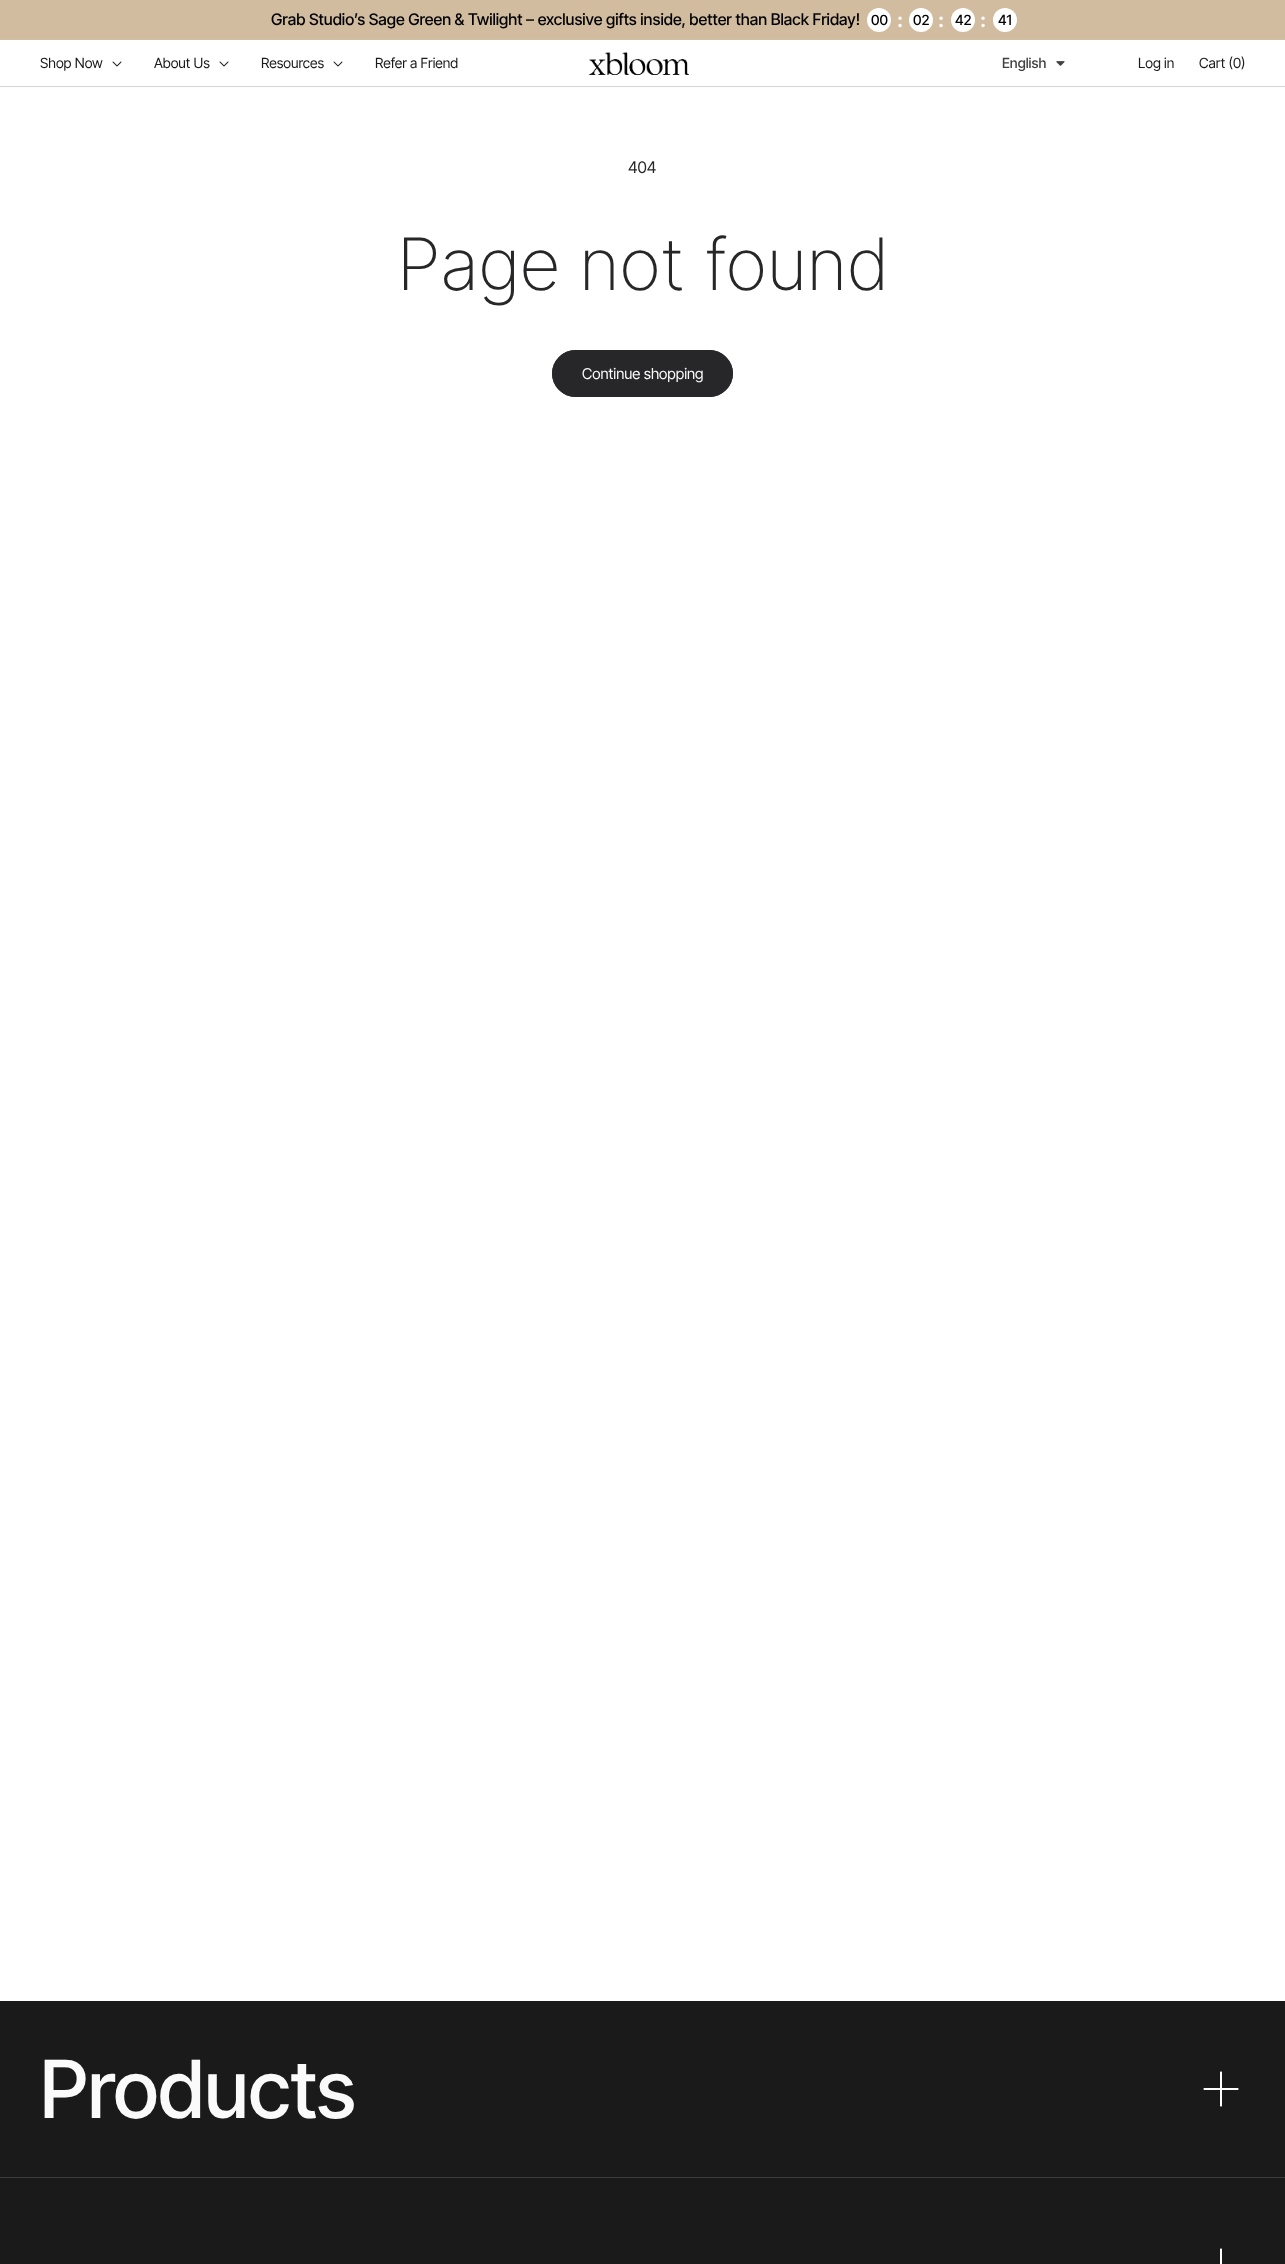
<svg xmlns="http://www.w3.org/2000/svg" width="1285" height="2264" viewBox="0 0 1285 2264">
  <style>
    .t1 { font: 500 16px Inter Tight; fill: #000; }
    .t2 { font: 500 14px Inter Tight; fill: #000; }
    .t3 { font: bold 20px Inter Tight; fill: #fafafa; }
    .t4 { font: 14px Inter Tight; fill: #1a1a1a; }
    .t5 { font: 500 14px Inter Tight; fill: #404040; }
    .t6 { font: 16px Inter Tight; fill: #272729; }
    .t7 { font: 200 72px Inter Tight; fill: #272729; }
    .t8 { font: 15px Inter Tight; fill: #fafafa; }
    .t9 { font: 500 80px Inter Tight; fill: #fafafa; }
  </style>
  <rect width="100%" height="100%" fill="#fff"/>
  <rect x="0" y="39" width="1285" height="1" fill="#d2bea1"/>
  <rect x="0" y="0" width="1285" height="39" fill="#d1bc9f"/>
  <text x="271" y="25" class="t1">Grab Studio’s Sage Green &amp; Twilight – exclusive gifts inside, better than Black Friday!</text>
  <circle cx="879" cy="20" r="12" fill="#fff"/>
  <text x="871" y="25" class="t2">00</text>
  <text x="897" y="27" class="t3">:</text>
  <circle cx="921" cy="20" r="12" fill="#fff"/>
  <text x="913" y="25" class="t2">02</text>
  <text x="938" y="27" class="t3">:</text>
  <circle cx="963" cy="20" r="12" fill="#fff"/>
  <text x="955" y="25" class="t2">42</text>
  <text x="980" y="27" class="t3">:</text>
  <circle cx="1005" cy="20" r="12" fill="#fff"/>
  <text x="998" y="25" class="t2">41</text>
  <rect x="0" y="86" width="1285" height="1" fill="#d4d4d4"/>
  <text x="40" y="68" class="t4">Shop Now</text>
  <image x="112" y="61" width="10" height="6" href="images/1.png"/>
  <text x="154" y="68" class="t4">About Us</text>
  <image x="219" y="61" width="10" height="6" href="images/1.png"/>
  <text x="261" y="68" class="t4">Resources</text>
  <image x="333" y="61" width="10" height="6" href="images/1.png"/>
  <text x="375" y="68" class="t4">Refer a Friend</text>
  <image x="588" y="52" width="101" height="23" href="images/2.png"/>
  <text x="1002" y="68" class="t5">English</text>
  <image x="1056" y="61" width="9" height="5" href="images/3.png"/>
  <text x="1138" y="68" class="t4">Log in</text>
  <text x="1199" y="68" class="t4">Cart (0)</text>
  <text x="628" y="173" class="t6">404</text>
  <text x="397" y="290" class="t7">Page not found</text>
  <rect x="552" y="350" width="181" height="47" rx="23.5" fill="#272729"/>
  <rect x="552.5" y="350.5" width="180" height="46" rx="23" fill="none" stroke="#272729"/>
  <text x="582" y="379" class="t8">Continue shopping</text>
  <rect x="0" y="2001" width="1285" height="263" fill="#1a1a1a"/>
  <rect x="0" y="2177" width="1285" height="1" fill="#3b3b3b"/>
  <text x="40" y="2118" class="t9">Products</text>
  <image x="1203" y="2071" width="36" height="36" href="images/4.png"/>
  <image x="1220" y="2248" width="2" height="16" href="images/5.png"/>
</svg>
